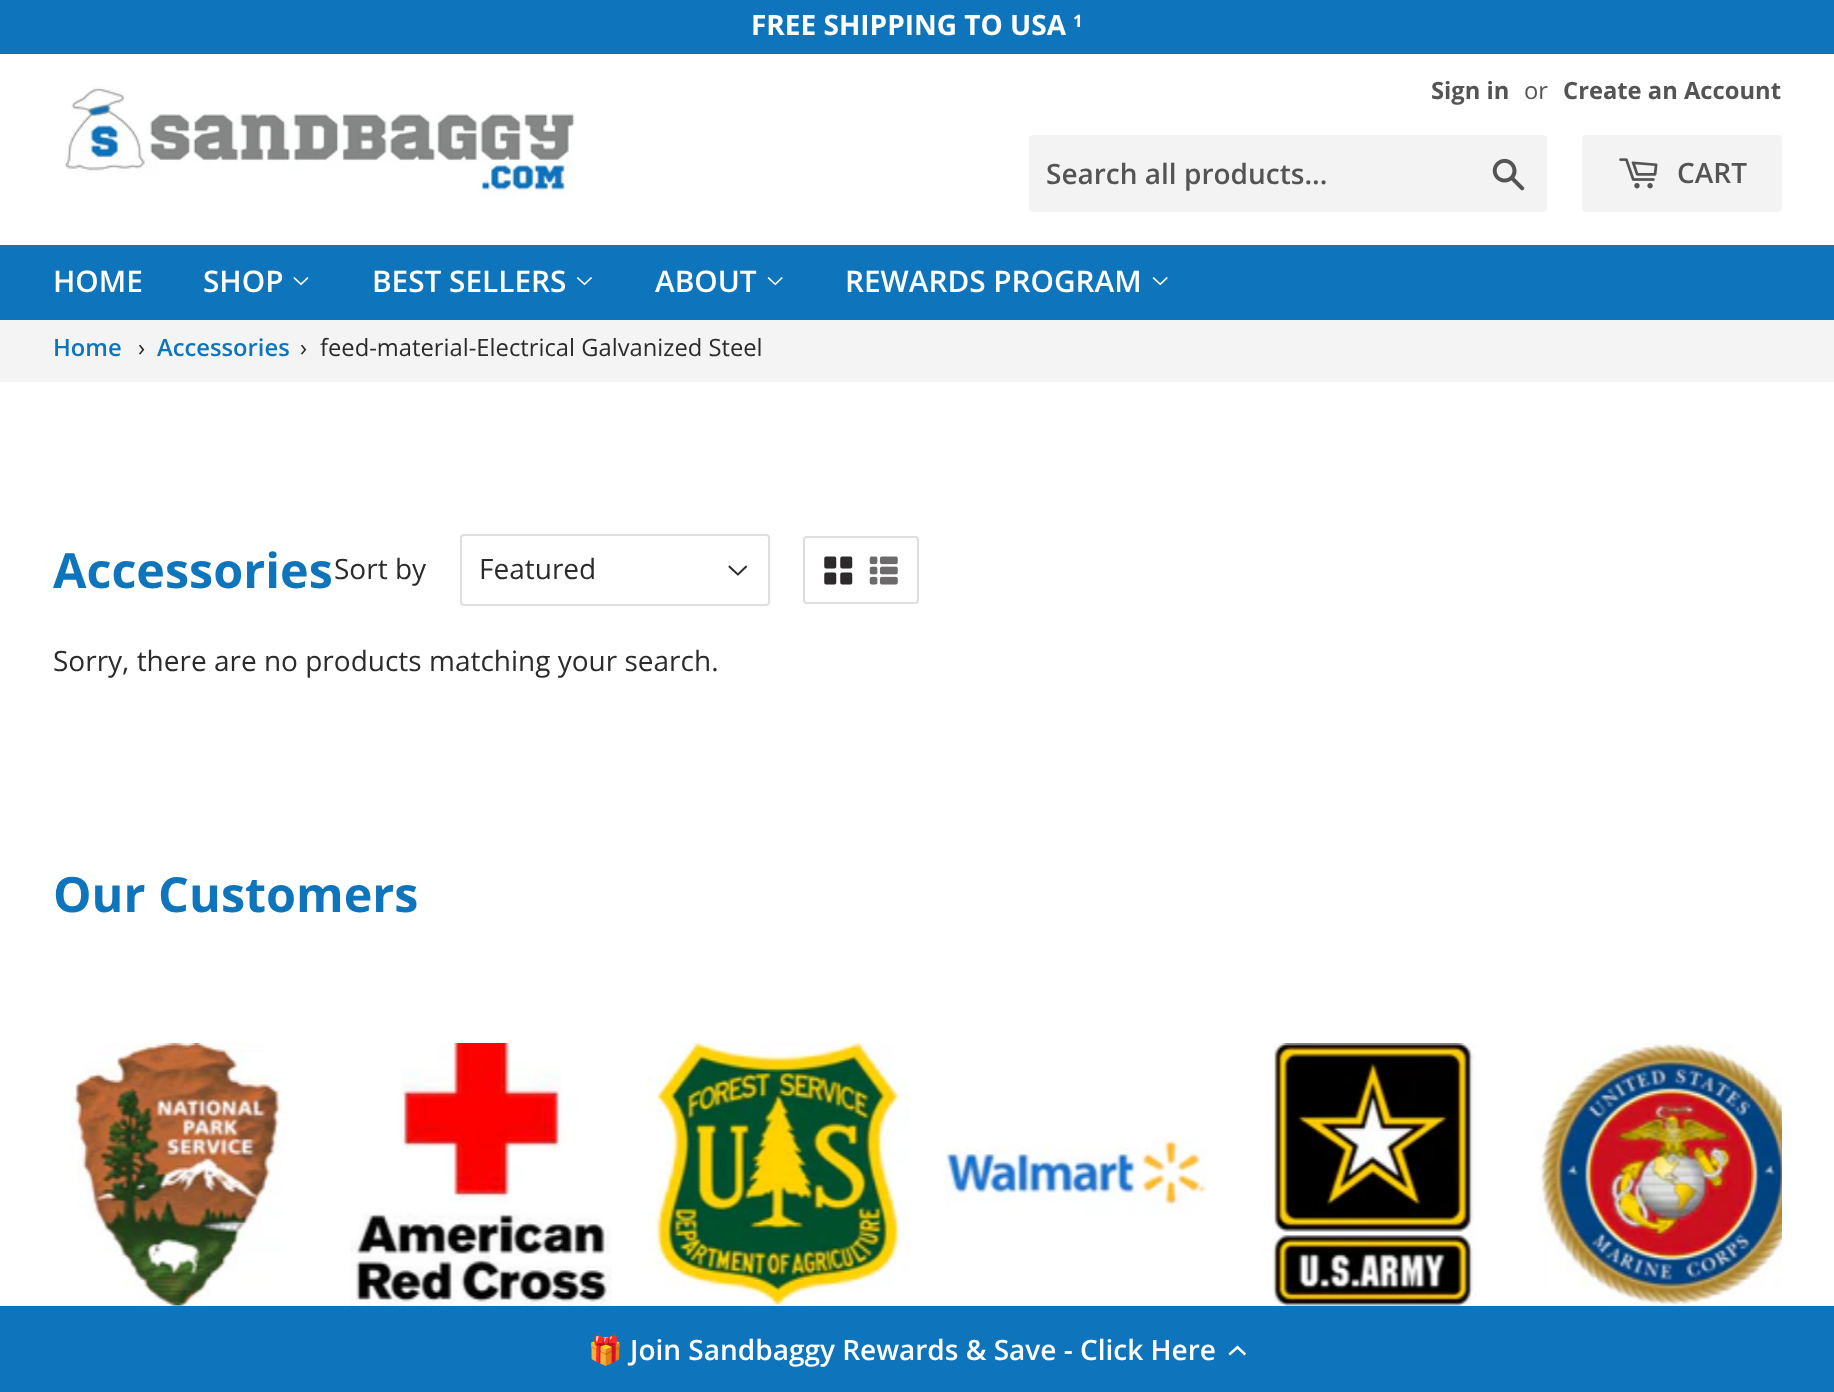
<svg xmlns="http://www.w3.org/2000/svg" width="1834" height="1392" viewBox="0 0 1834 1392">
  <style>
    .t1 { font: bold 28px Open Sans; fill: #fff; }
    .t2 { font: bold 17px Open Sans; fill: #fff; }
    .t3 { font: bold 23.75px Open Sans; fill: #545454; }
    .t4 { font: 23.75px Open Sans; fill: #545454; }
    .t5 { font: 600 28px Open Sans; fill: #545454; }
    .t6 { font: 600 29.75px Open Sans; fill: #fff; }
    .t7 { font: 600 23.75px Open Sans; fill: #0e74bb; }
    .t8 { font: 23.75px Open Sans; fill: #2c2a2a; }
    .t9 { font: bold 48.5px Open Sans; fill: #0e74bb; }
    .t10 { font: 28px Open Sans; fill: #2c2a2a; }
    .t11 { font: bold 28px Noto Color Emoji; fill: #fff; }
    .t12 { font: 600 28px Open Sans; fill: #fff; }
  </style>
  <rect width="100%" height="100%" fill="#fff"/>
  <rect x="0" y="0" width="1834" height="54" fill="#0e74bb"/>
  <text x="751" y="35" class="t1">FREE SHIPPING TO USA</text>
  <text x="1073" y="27" class="t2">1</text>
  <image x="65" y="86" width="510" height="110" href="images/1.png"/>
  <text x="1431" y="99" class="t3">Sign in</text>
  <text x="1524" y="99" class="t4">or</text>
  <text x="1563" y="99" class="t3">Create an Account</text>
  <rect x="1029" y="135" width="518" height="77" rx="4" fill="#f3f3f3"/>
  <text x="1046" y="184" class="t5">Search all products...</text>
  <image x="1492" y="158" width="33" height="33" href="images/2.png"/>
  <rect x="1582" y="135" width="200" height="77" rx="4" fill="#f3f3f3"/>
  <image x="1619" y="158" width="39" height="31" href="images/3.png"/>
  <text x="1677" y="183" class="t5">CART</text>
  <rect x="0" y="245" width="1834" height="75" fill="#0e74bb"/>
  <text x="53" y="292" class="t6">HOME</text>
  <text x="203" y="292" class="t6">SHOP</text>
  <image x="293" y="277" width="16" height="9" href="images/4.png"/>
  <text x="372" y="292" class="t6">BEST SELLERS</text>
  <image x="577" y="277" width="15" height="9" href="images/5.png"/>
  <text x="655" y="292" class="t6">ABOUT</text>
  <image x="767" y="277" width="16" height="9" href="images/6.png"/>
  <text x="845" y="292" class="t6">REWARDS PROGRAM</text>
  <image x="1152" y="277" width="16" height="9" href="images/6.png"/>
  <rect x="0" y="320" width="1834" height="62" fill="#f4f4f4"/>
  <text x="53" y="356" class="t7">Home</text>
  <text x="138" y="356" class="t8">›</text>
  <text x="157" y="356" class="t7">Accessories</text>
  <text x="300" y="356" class="t8">›</text>
  <text x="320" y="356" class="t8">feed-material-Electrical Galvanized Steel</text>
  <text x="53" y="588" class="t9">Accessories</text>
  <text x="334" y="579" class="t10">Sort by</text>
  <image x="728" y="565" width="19" height="11" href="images/7.png"/>
  <rect x="461" y="535" width="308" height="70" rx="3" fill="none" stroke="#dedede" stroke-width="2"/>
  <text x="479" y="579" class="t10">Featured</text>
  <rect x="804" y="537" width="114" height="66" rx="3" fill="none" stroke="#dedede" stroke-width="2"/>
  <image x="824" y="556" width="29" height="29" href="images/8.png"/>
  <image x="869" y="556" width="29" height="29" href="images/9.png"/>
  <text x="53" y="671" class="t10">Sorry, there are no products matching your search.</text>
  <text x="53" y="912" class="t9">Our Customers</text>
  <image x="70" y="1043" width="212" height="263" href="images/10.png"/>
  <image x="350" y="1043" width="262" height="263" href="images/11.png"/>
  <image x="647" y="1043" width="263" height="263" href="images/12.png"/>
  <image x="945" y="1139" width="262" height="76" href="images/13.png"/>
  <image x="1272" y="1043" width="205" height="263" href="images/14.png"/>
  <image x="1539" y="1043" width="243" height="263" href="images/15.png"/>
  <rect x="0" y="1306" width="1834" height="86" fill="#0e74bb"/>
  <text x="588" y="1360" class="t11">🎁</text>
  <text x="630" y="1360" class="t12">Join Sandbaggy Rewards &amp; Save - Click Here</text>
  <path d="M1237.5 1349L1230 1355.5L1228.5 1353.5L1237.5 1345.5L1246 1353.5L1244.5 1355.5Z" fill="#fff"/>
</svg>
